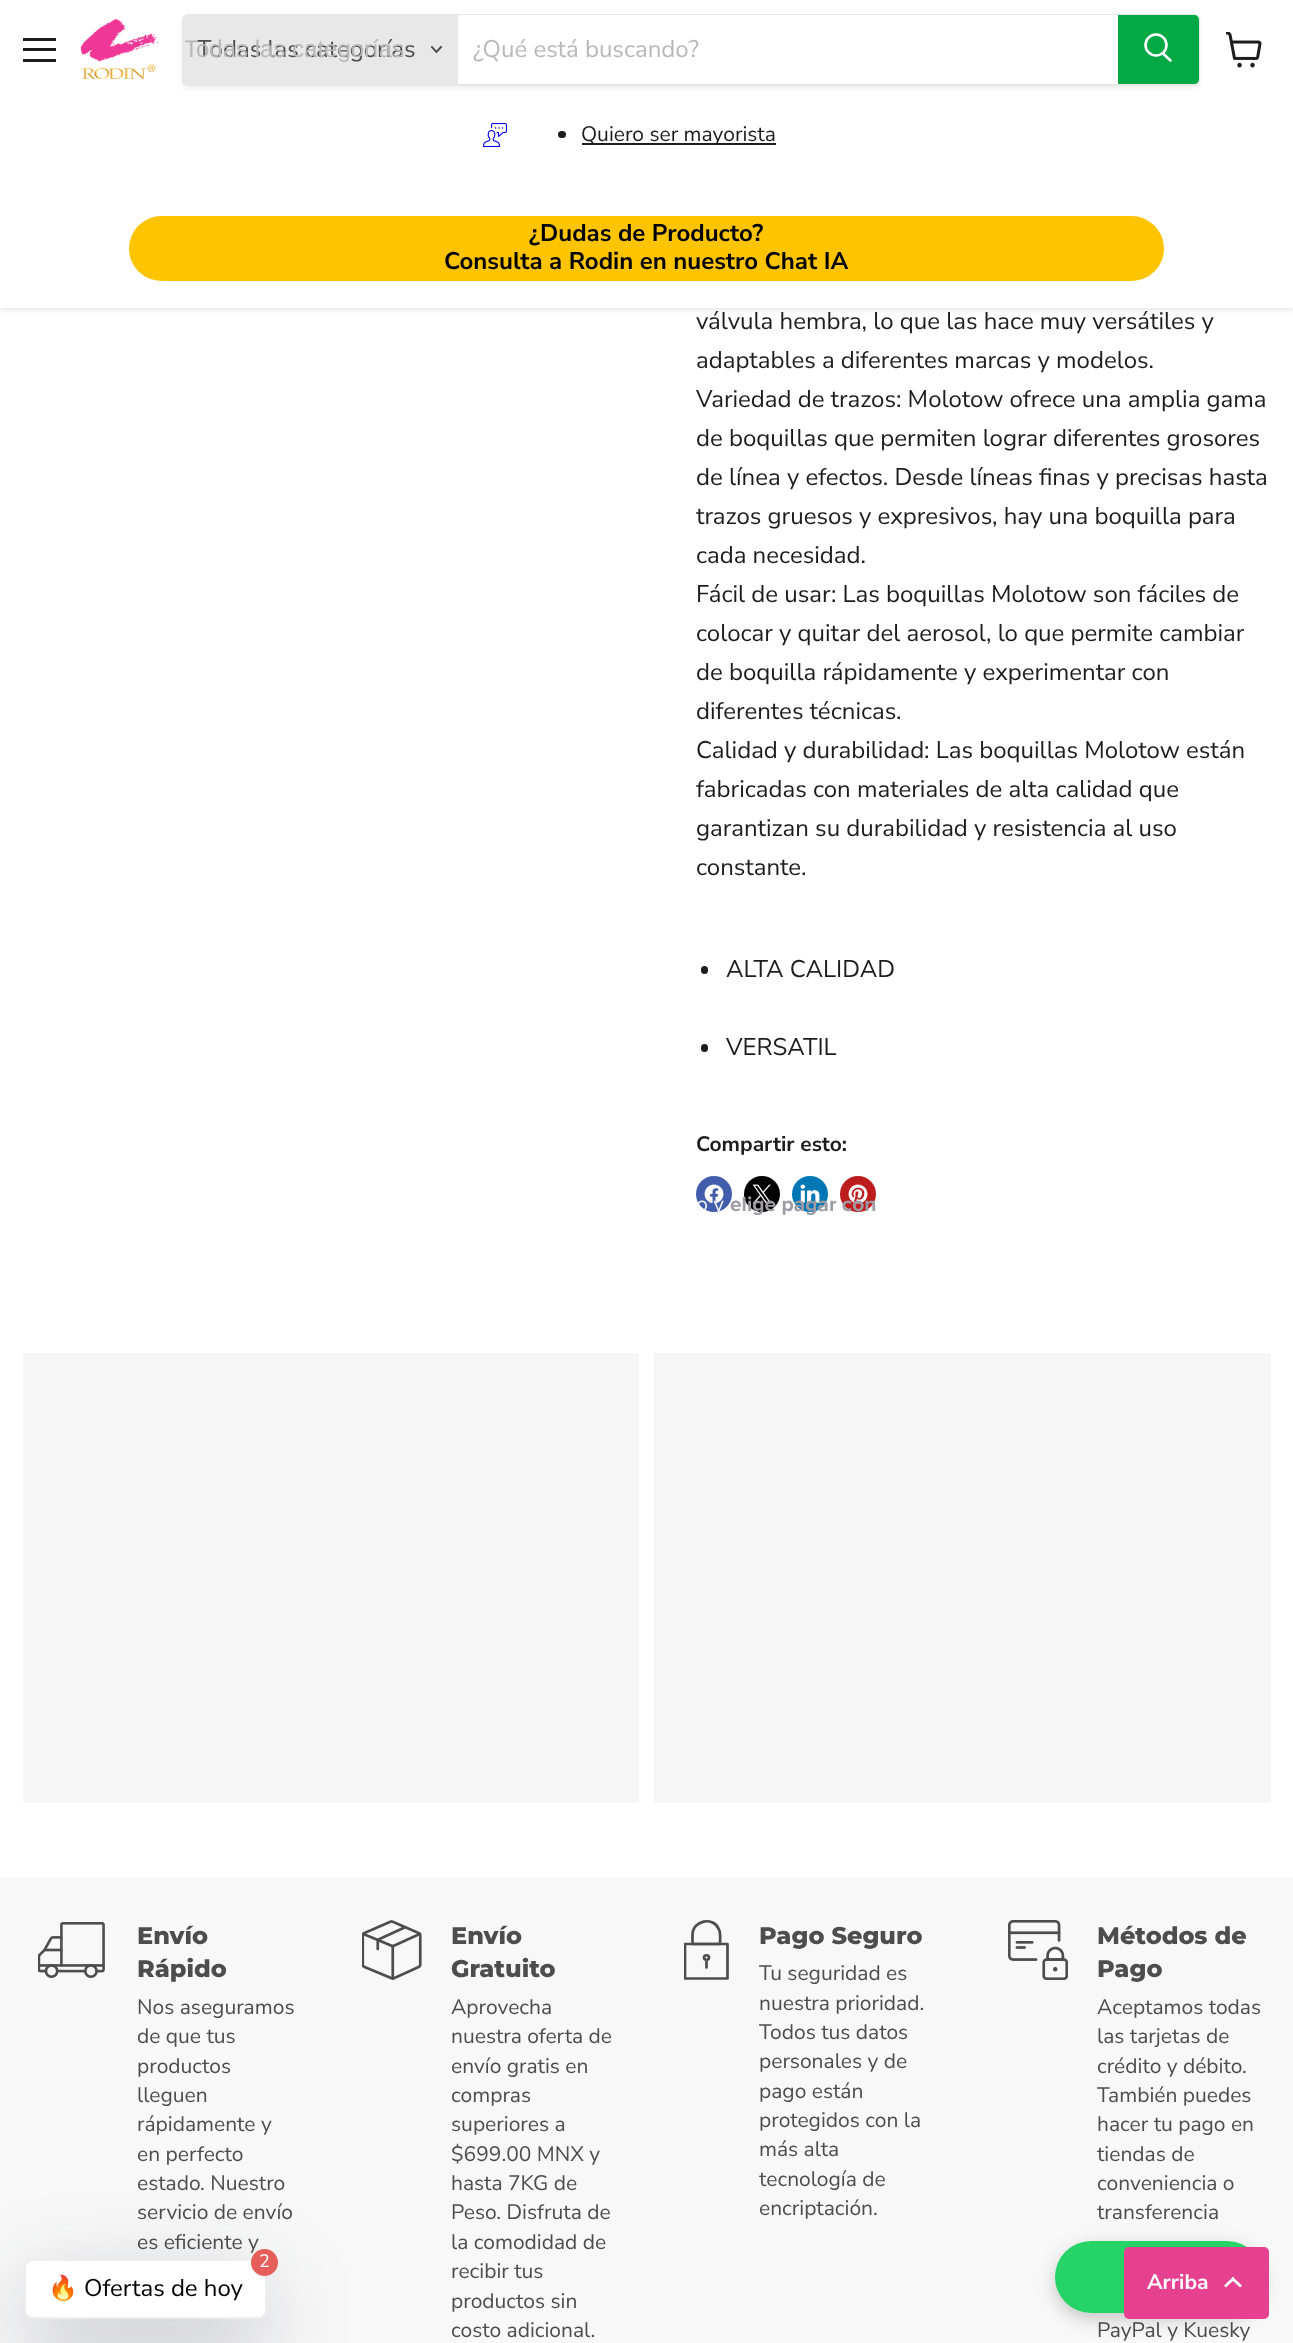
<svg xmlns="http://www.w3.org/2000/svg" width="1293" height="2343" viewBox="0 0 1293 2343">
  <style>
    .t1 { font: 24px Nunito Sans; fill: #4d4d4d; }
    .t2 { font: 24px Liberation Sans; fill: #b8b8b8; }
    .t3 { font: 24px Nunito Sans; fill: #b8b8b8; }
    .t4 { font: 21px Nunito Sans; fill: #1d1d1d; }
    .t5 { font: bold 24px Nunito Sans; fill: #000; }
    .t6 { font: 24px Nunito Sans; fill: #1d1d1d; }
    .t7 { font: bold 21px Nunito Sans; fill: #1d1d1d; }
    .t8 { font: 800 24px Montserrat; fill: #4d4d4d; }
    .t9 { font: 21px Nunito Sans; fill: #4d4d4d; }
    .t10 { font: 21px Proxima Nova; fill: #f4f6fa; }
    .t11 { font: bold 21px Proxima Nova; fill: #9e9ba5; }
    .t12 { font: 18px Nunito Sans; fill: #fff; }
    .t13 { font: 24px Noto Color Emoji; fill: #000; }
    .t14 { font: 24px Nunito Sans; fill: #000; }
    .t15 { font: bold 21px Nunito Sans; fill: #fff; }
  </style>
  <defs>
    <clipPath id="clip1"><path d="M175 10H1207V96H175ZM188 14H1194C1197.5 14 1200 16.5 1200 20V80C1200 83.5 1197.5 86 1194 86H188C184.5 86 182 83.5 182 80V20C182 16.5 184.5 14 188 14Z" clip-rule="evenodd"/></clipPath>
    <clipPath id="clip2"><rect x="185" y="36" width="271" height="27"/></clipPath>
    <clipPath id="clip3"><rect x="684" y="1920" width="45" height="60"/></clipPath>
  </defs>
  <rect width="100%" height="100%" fill="#fff"/>
  <rect x="0" y="2" width="1293" height="307" fill="#80808040" filter="blur(3px)"/>
  <rect x="0" y="0" width="1293" height="308" fill="#fff"/>
  <rect x="23" y="38" width="33" height="3" fill="#1d1d1d"/>
  <rect x="23" y="48" width="33" height="3" fill="#1d1d1d"/>
  <rect x="23" y="59" width="33" height="3" fill="#1d1d1d"/>
  <image x="80" y="19" width="79" height="60" href="images/1.png"/>
  <g clip-path="url(#clip1)">
    <rect x="182" y="17" width="1018" height="72" rx="6" fill="#8080801c" filter="blur(2px)"/>
  </g>
  <rect x="183" y="15" width="1016" height="70" rx="5" fill="none" stroke="#80808033" stroke-width="2"/>
  <path d="M188 15H458V84H188C185 84 183 82 183 79V20C183 17 185 15 188 15Z" fill="#e8e8e8"/>
  <text x="197" y="57" class="t1">Todas las categorías</text>
  <g clip-path="url(#clip2)">
    <text x="184" y="57" class="t2">Todas las categorías</text>
  </g>
  <path d="M436.5 52L441 47M436.5 52L432 47" fill="none" stroke="#4d4d4d" stroke-width="1.9" stroke-linecap="square"/>
  <rect x="458" y="15" width="660" height="1" fill="#fff"/>
  <text x="473" y="57" class="t3">¿Qué está buscando?</text>
  <path d="M1118 15H1194C1197 15 1199 17 1199 20V79C1199 82 1197 84 1194 84H1118Z" fill="#02a945"/>
  <path d="M1170.5 60.5L1163 53.5" fill="none" stroke="#fff" stroke-width="2.6" stroke-linecap="round"/>
  <circle cx="1156" cy="45" r="10.5" fill="none" stroke="#fff" stroke-width="2.6"/>
  <image x="483" y="123" width="24" height="24" href="images/2.png"/>
  <rect x="558" y="131" width="8" height="7" rx="3.5" fill="#1d1d1d"/>
  <rect x="582" y="143" width="194" height="2" fill="#1d1d1d"/>
  <text x="581" y="141" class="t4">Quiero ser mayorista</text>
  <image x="1226" y="32" width="36" height="36" href="images/3.png"/>
  <rect x="129" y="216" width="1035" height="65" rx="32.5" fill="#ffc400"/>
  <text x="529" y="241" class="t5">¿Dudas de Producto?</text>
  <text x="444" y="269" class="t5">Consulta a Rodin en nuestro Chat IA</text>
  <text x="696" y="329" class="t6">válvula hembra, lo que las hace muy versátiles y</text>
  <text x="696" y="368" class="t6">adaptables a diferentes marcas y modelos.</text>
  <text x="696" y="407" class="t6">Variedad de trazos: Molotow ofrece una amplia gama</text>
  <text x="696" y="446" class="t6">de boquillas que permiten lograr diferentes grosores</text>
  <text x="696" y="485" class="t6">de línea y efectos. Desde líneas finas y precisas hasta</text>
  <text x="696" y="524" class="t6">trazos gruesos y expresivos, hay una boquilla para</text>
  <text x="696" y="563" class="t6">cada necesidad.</text>
  <text x="696" y="602" class="t6">Fácil de usar: Las boquillas Molotow son fáciles de</text>
  <text x="696" y="641" class="t6">colocar y quitar del aerosol, lo que permite cambiar</text>
  <text x="696" y="680" class="t6">de boquilla rápidamente y experimentar con</text>
  <text x="696" y="719" class="t6">diferentes técnicas.</text>
  <text x="696" y="758" class="t6">Calidad y durabilidad: Las boquillas Molotow están</text>
  <text x="696" y="797" class="t6">fabricadas con materiales de alta calidad que</text>
  <text x="696" y="836" class="t6">garantizan su durabilidad y resistencia al uso</text>
  <text x="696" y="875" class="t6">constante.</text>
  <rect x="701" y="966" width="7" height="8" rx="3.5" fill="#1d1d1d"/>
  <text x="726" y="977" class="t6">ALTA CALIDAD</text>
  <rect x="701" y="1044" width="7" height="8" rx="3.5" fill="#1d1d1d"/>
  <text x="726" y="1055" class="t6">VERSATIL</text>
  <text x="696" y="1151" class="t7">Compartir esto:</text>
  <circle cx="714" cy="1194" r="18" fill="#425dab"/>
  <image x="704" y="1184" width="20" height="20" href="images/4.png"/>
  <circle cx="762" cy="1194" r="18" fill="#000"/>
  <image x="752" y="1184" width="20" height="20" href="images/5.png"/>
  <circle cx="810" cy="1194" r="18" fill="#0077b5"/>
  <image x="800" y="1184" width="20" height="19" href="images/6.png"/>
  <circle cx="858" cy="1194" r="18" fill="#bd1c1c"/>
  <image x="848" y="1184" width="20" height="20" href="images/7.png"/>
  <rect x="23" y="1353" width="616" height="450" fill="#f6f6f6"/>
  <rect x="654" y="1353" width="617" height="450" fill="#f6f6f6"/>
  <rect x="0" y="1878" width="1293" height="465" fill="#f8f8f8"/>
  <image x="38" y="1922" width="67" height="56" href="images/8.png"/>
  <text x="137" y="1944" class="t8">Envío</text>
  <text x="137" y="1977" class="t8">Rápido</text>
  <text x="137" y="2014" class="t9">Nos aseguramos</text>
  <text x="137" y="2043" class="t9">de que tus</text>
  <text x="137" y="2073" class="t9">productos</text>
  <text x="137" y="2102" class="t9">lleguen</text>
  <text x="137" y="2131" class="t9">rápidamente y</text>
  <text x="137" y="2161" class="t9">en perfecto</text>
  <text x="137" y="2190" class="t9">estado. Nuestro</text>
  <text x="137" y="2219" class="t9">servicio de envío</text>
  <text x="137" y="2249" class="t9">es eficiente y</text>
  <image x="362" y="1920" width="60" height="60" href="images/9.png"/>
  <text x="451" y="1944" class="t8">Envío</text>
  <text x="451" y="1977" class="t8">Gratuito</text>
  <text x="451" y="2014" class="t9">Aprovecha</text>
  <text x="451" y="2043" class="t9">nuestra oferta de</text>
  <text x="451" y="2073" class="t9">envío gratis en</text>
  <text x="451" y="2102" class="t9">compras</text>
  <text x="451" y="2131" class="t9">superiores a</text>
  <text x="451" y="2161" class="t9">$699.00 MNX y</text>
  <text x="451" y="2190" class="t9">hasta 7KG de</text>
  <text x="451" y="2219" class="t9">Peso. Disfruta de</text>
  <text x="451" y="2249" class="t9">la comodidad de</text>
  <text x="451" y="2278" class="t9">recibir tus</text>
  <text x="451" y="2308" class="t9">productos sin</text>
  <text x="451" y="2337" class="t9">costo adicional.</text>
  <path d="M704 1957.5C704 1960.5 709 1960.5 709 1957.5C709 1954.5 704 1954.5 704 1957.5ZM706.5 1960V1967.5" fill="none" stroke="#4d4d4d" stroke-width="2.7" stroke-linecap="round" stroke-linejoin="round"/>
  <g clip-path="url(#clip3)">
    <path d="M685 1944H727.5V1978.5H685Z" fill="none" stroke="#4d4d4d" stroke-width="2.7" stroke-linecap="round" stroke-linejoin="round"/>
  </g>
  <path d="M692.5 1935C692.5 1920 713.5 1916 719 1929.5C721 1934 720 1939 720 1944H692.5Z" fill="none" stroke="#4d4d4d" stroke-width="2.7" stroke-linecap="round" stroke-linejoin="round"/>
  <text x="759" y="1944" class="t8">Pago Seguro</text>
  <text x="759" y="1980" class="t9">Tu seguridad es</text>
  <text x="759" y="2010" class="t9">nuestra prioridad.</text>
  <text x="759" y="2039" class="t9">Todos tus datos</text>
  <text x="759" y="2068" class="t9">personales y de</text>
  <text x="759" y="2098" class="t9">pago están</text>
  <text x="759" y="2127" class="t9">protegidos con la</text>
  <text x="759" y="2156" class="t9">más alta</text>
  <text x="759" y="2186" class="t9">tecnología de</text>
  <text x="759" y="2215" class="t9">encriptación.</text>
  <image x="1008" y="1920" width="60" height="60" href="images/10.png"/>
  <text x="1097" y="1944" class="t8">Métodos de</text>
  <text x="1097" y="1977" class="t8">Pago</text>
  <text x="1097" y="2014" class="t9">Aceptamos todas</text>
  <text x="1097" y="2043" class="t9">las tarjetas de</text>
  <text x="1097" y="2073" class="t9">crédito y débito.</text>
  <text x="1097" y="2102" class="t9">También puedes</text>
  <text x="1097" y="2131" class="t9">hacer tu pago en</text>
  <text x="1097" y="2161" class="t9">tiendas de</text>
  <text x="1097" y="2190" class="t9">conveniencia o</text>
  <text x="1097" y="2219" class="t9">transferencia</text>
  <text x="1097" y="2337" class="t9">PayPal y Kuesky</text>
  <text x="696" y="1211" class="t10">o y</text>
  <text x="730" y="1211" class="t11">elige pagar con</text>
  <rect x="27" y="2292" width="237" height="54" rx="6" fill="#1b213a4d" filter="blur(45px)"/>
  <rect x="25" y="2260" width="241" height="58" rx="8" fill="#fff" stroke="#eee" stroke-width="2"/>
  <circle cx="264.5" cy="2262.5" r="13.5" fill="#e65f5a"/>
  <text x="259" y="2267" class="t12">2</text>
  <text x="48" y="2296" class="t13">🔥</text>
  <text x="84" y="2296" class="t14">Ofertas de hoy</text>
  <rect x="1055" y="2247" width="208" height="72" rx="36" fill="#00000033" filter="blur(9px)"/>
  <rect x="1055" y="2241" width="208" height="72" rx="36" fill="#25d366"/>
  <rect x="1125" y="2248" width="143" height="70" rx="4" fill="#e64190" stroke="#e64190" stroke-width="2"/>
  <text x="1147" y="2289" class="t15">Arriba</text>
  <path d="M1233 2279L1226 2285.5M1233 2279L1240 2285.5" fill="none" stroke="#fff" stroke-width="2.8" stroke-linecap="square"/>
</svg>
